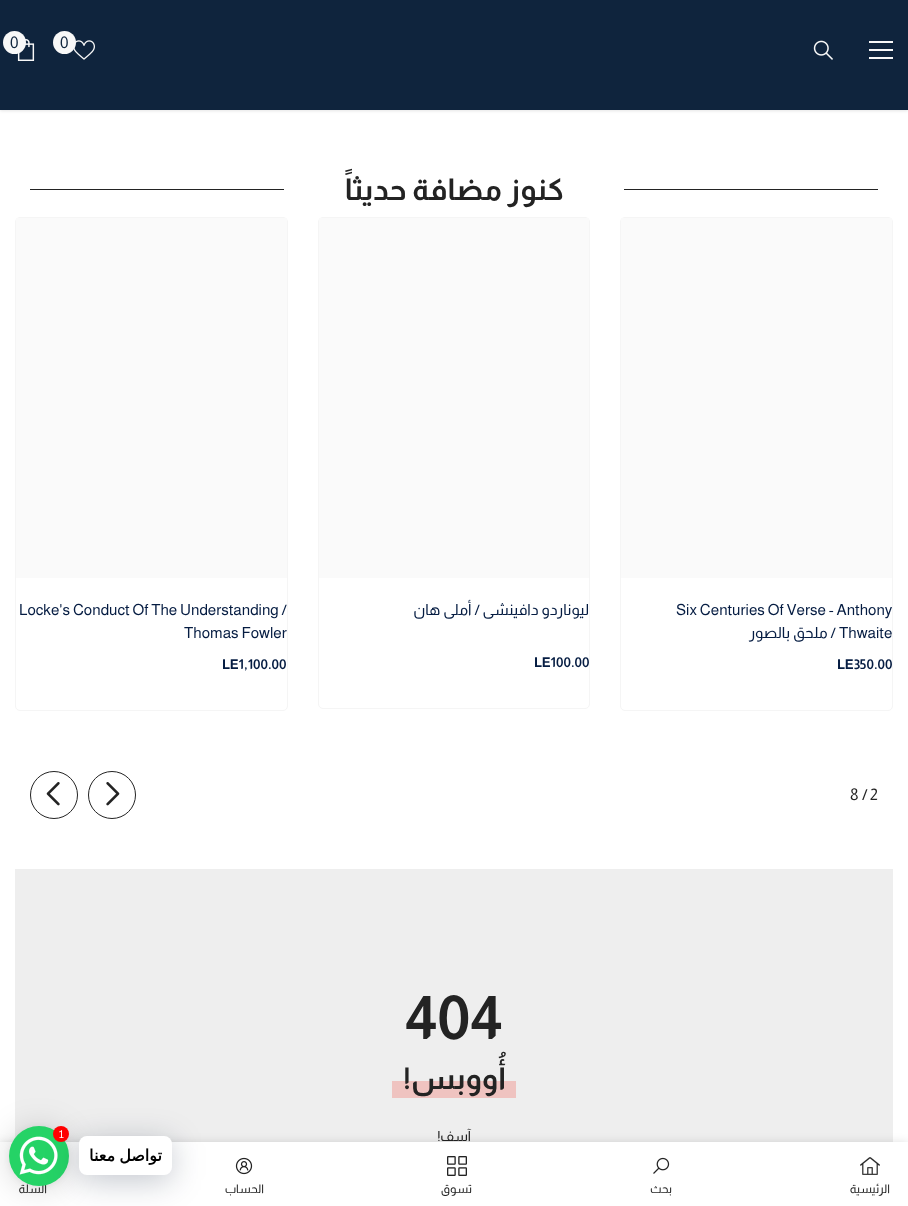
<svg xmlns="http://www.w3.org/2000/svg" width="908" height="1206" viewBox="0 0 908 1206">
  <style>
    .t1 { font: 16px Almarai; fill: #0f243d; }
    .t2 { font: bold 30px Almarai; direction: rtl; fill: #232323; }
    .t3 { font: 15.4px Almarai; fill: #051c42; }
    .t4 { font: bold 13.5px Almarai; fill: #051c42; }
    .t5 { font: 15.4px Almarai; direction: rtl; fill: #051c42; }
    .t6 { font: 16px Almarai; fill: #232323; }
    .t7 { font: bold 60px Almarai; fill: #232323; }
    .t8 { font: 14px Almarai; direction: rtl; fill: #232323; }
    .t9 { font: 12px Almarai; direction: rtl; fill: #232323; }
    .t10 { font: 11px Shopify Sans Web; fill: #fff; }
    .t11 { font: bold 16px DejaVu Sans; direction: rtl; fill: #000; }
  </style>
  <defs>
    <linearGradient id="g1" gradientUnits="userSpaceOnUse" x1="-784" y1="398" x2="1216" y2="398"><stop offset="0.04" stop-color="#fafafa"/><stop offset="0.25" stop-color="#f1f2f3"/><stop offset="0.36" stop-color="#fafafa"/></linearGradient>
    <linearGradient id="g2" gradientUnits="userSpaceOnUse" x1="-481" y1="398" x2="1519" y2="398"><stop offset="0.04" stop-color="#fafafa"/><stop offset="0.25" stop-color="#f1f2f3"/><stop offset="0.36" stop-color="#fafafa"/></linearGradient>
    <linearGradient id="g3" gradientUnits="userSpaceOnUse" x1="-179" y1="398" x2="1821" y2="398"><stop offset="0.04" stop-color="#fafafa"/><stop offset="0.25" stop-color="#f1f2f3"/><stop offset="0.36" stop-color="#fafafa"/></linearGradient>
  </defs>
  <rect width="100%" height="100%" fill="#fff"/>
  <rect x="0" y="1" width="908" height="110" fill="#0000001a" filter="blur(1.5px)"/>
  <rect x="0" y="0" width="908" height="110" fill="#0f243d"/>
  <image x="17" y="39" width="18" height="22" href="images/1.png"/>
  <circle cx="14.5" cy="42.5" r="11.5" fill="#f8f8f8"/>
  <text x="10" y="48" class="t1">0</text>
  <image x="73" y="40" width="22" height="20" href="images/2.png"/>
  <circle cx="64.5" cy="42.5" r="11.5" fill="#f8f8f8"/>
  <text x="60" y="48" class="t1">0</text>
  <image x="813" y="40" width="20" height="20" href="images/3.png"/>
  <rect x="869" y="49" width="24" height="2" fill="#f8f8f8"/>
  <rect x="869" y="41" width="24" height="2" fill="#f8f8f8"/>
  <rect x="869" y="57" width="24" height="2" fill="#f8f8f8"/>
  <rect x="30" y="189" width="848" height="1" fill="#232323"/>
  <rect x="284" y="189" width="340" height="1" fill="#fff"/>
  <text x="564" y="200" class="t2">كنوز مضافة حديثاً</text>
  <rect x="15.5" y="217.5" width="272" height="493" rx="4.5" fill="none" stroke="#f5f5f5"/>
  <rect x="16" y="218" width="271" height="360" fill="url(#g1)"/>
  <text x="19" y="615" class="t3">Locke's Conduct Of The Understanding /</text>
  <text x="184" y="638" class="t3">Thomas Fowler</text>
  <text x="222" y="669" class="t4">LE1,100.00</text>
  <rect x="318.5" y="217.5" width="271" height="491" rx="4.5" fill="none" stroke="#f5f5f5"/>
  <rect x="319" y="218" width="270" height="360" fill="url(#g2)"/>
  <text x="589" y="615" class="t5">ليوناردو دافينشى / أملى هان</text>
  <text x="534" y="667" class="t4">LE100.00</text>
  <rect x="620.5" y="217.5" width="272" height="493" rx="4.5" fill="none" stroke="#f5f5f5"/>
  <rect x="621" y="218" width="271" height="360" fill="url(#g3)"/>
  <text x="676" y="615" class="t3">Six Centuries Of Verse - Anthony</text>
  <text x="836" y="638" class="t5">/ ملحق بالصور</text>
  <text x="839" y="638" class="t3">Thwaite</text>
  <text x="837" y="669" class="t4">LE350.00</text>
  <circle cx="54" cy="795" r="23.5" fill="none" stroke="#232323"/>
  <image x="46" y="782" width="14" height="24" href="images/4.png"/>
  <circle cx="112" cy="795" r="23.5" fill="none" stroke="#232323"/>
  <image x="106" y="782" width="14" height="24" href="images/5.png"/>
  <text x="850" y="800" class="t6">8</text>
  <text x="862" y="800" class="t6">/</text>
  <text x="870" y="800" class="t6">2</text>
  <rect x="15" y="869" width="878" height="273" fill="#eee"/>
  <text x="405" y="1039" class="t7">404</text>
  <rect x="392" y="1081" width="124" height="17" fill="#efc3c0"/>
  <text x="506" y="1089" class="t2">أُووبس!</text>
  <text x="471" y="1141" class="t8">آسف!</text>
  <rect x="0" y="1142" width="908" height="64" fill="#0000001f" filter="blur(4.5px)"/>
  <rect x="0" y="1142" width="908" height="64" fill="#fff"/>
  <text x="47" y="1193" class="t9">السلة</text>
  <image x="235" y="1157" width="18" height="18" href="images/6.png"/>
  <text x="264" y="1193" class="t9">الحساب</text>
  <image x="447" y="1156" width="20" height="20" href="images/7.png"/>
  <text x="472" y="1193" class="t9">تسوق</text>
  <image x="653" y="1157" width="17" height="17" href="images/8.png"/>
  <text x="672" y="1193" class="t9">بحث</text>
  <image x="860" y="1157" width="20" height="18" href="images/9.png"/>
  <text x="890" y="1193" class="t9">الرئيسية</text>
  <rect x="9" y="1128" width="60" height="60" rx="30" fill="#00000029" filter="blur(16px)"/>
  <rect x="9" y="1127" width="60" height="60" rx="30" fill="#0000000f" filter="blur(3px)"/>
  <circle cx="39" cy="1156" r="30" fill="#25d366"/>
  <rect x="79" y="1142" width="93" height="39" rx="8" fill="#00122e3d" filter="blur(16px)"/>
  <image x="19" y="1136" width="39" height="39" href="images/10.png"/>
  <circle cx="61" cy="1134" r="8" fill="#f00"/>
  <text x="59" y="1138" class="t10">1</text>
  <rect x="79" y="1136" width="93" height="39" rx="8" fill="#fff"/>
  <text x="162" y="1161" word-spacing="-1" class="t11">تواصل معنا</text>
</svg>
